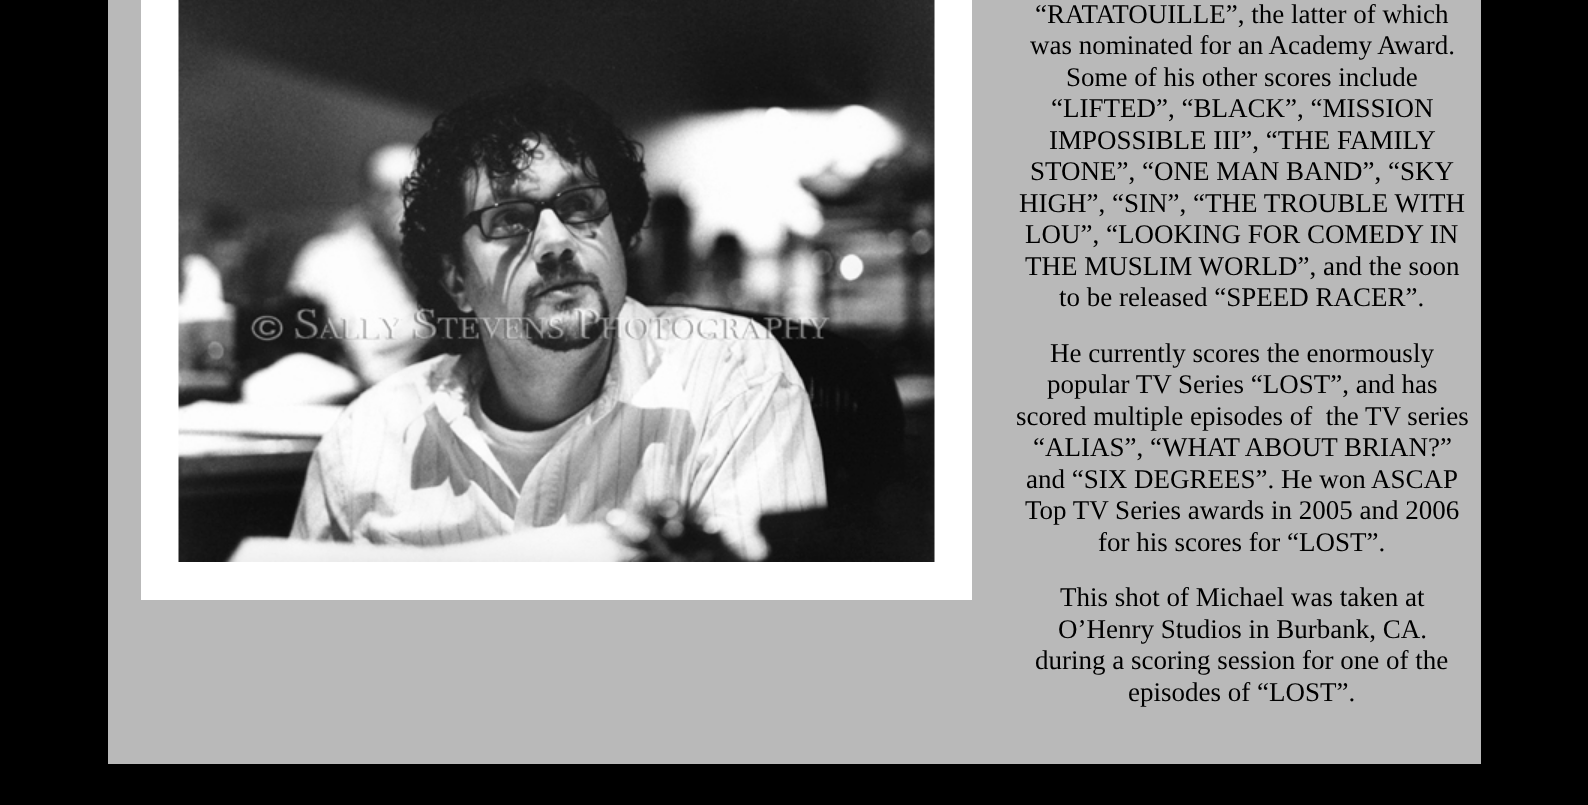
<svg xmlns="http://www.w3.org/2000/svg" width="1588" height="805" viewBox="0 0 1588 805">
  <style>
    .t1 { font: 27px Liberation Serif; fill: #000; }
  </style>
  <rect width="100%" height="100%" fill="#000"/>
  <rect x="108" y="0" width="1373" height="764" fill="#b9b9b9"/>
  <rect x="160" y="-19" width="793" height="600" fill="none" stroke="#fff" stroke-width="38"/>
  <image x="178" y="0" width="757" height="562" href="images/1.png"/>
  <text x="1035" y="23" class="t1">“RATATOUILLE”, the latter of which</text>
  <text x="1030" y="54" class="t1">was nominated for an Academy Award.</text>
  <text x="1066" y="86" class="t1">Some of his other scores include</text>
  <text x="1051" y="117" class="t1">“LIFTED”, “BLACK”, “MISSION</text>
  <text x="1049" y="149" class="t1">IMPOSSIBLE III”, “THE FAMILY</text>
  <text x="1030" y="180" class="t1">STONE”, “ONE MAN BAND”, “SKY</text>
  <text x="1019" y="212" class="t1">HIGH”, “SIN”, “THE TROUBLE WITH</text>
  <text x="1025" y="243" class="t1">LOU”, “LOOKING FOR COMEDY IN</text>
  <text x="1025" y="275" class="t1">THE MUSLIM WORLD”, and the soon</text>
  <text x="1059" y="306" class="t1">to be released “SPEED RACER”.</text>
  <text x="1050" y="362" class="t1">He currently scores the enormously</text>
  <text x="1047" y="393" class="t1">popular TV Series “LOST”, and has</text>
  <text x="1016" y="425" class="t1" xml:space="preserve">scored multiple episodes of  the TV series</text>
  <text x="1033" y="456" class="t1">“ALIAS”, “WHAT ABOUT BRIAN?”</text>
  <text x="1026" y="488" class="t1">and “SIX DEGREES”. He won ASCAP</text>
  <text x="1025" y="519" class="t1">Top TV Series awards in 2005 and 2006</text>
  <text x="1098" y="551" class="t1">for his scores for “LOST”.</text>
  <text x="1060" y="606" class="t1">This shot of Michael was taken at</text>
  <text x="1058" y="638" class="t1">O’Henry Studios in Burbank, CA.</text>
  <text x="1035" y="669" class="t1">during a scoring session for one of the</text>
  <text x="1128" y="701" class="t1">episodes of “LOST”.</text>
</svg>
